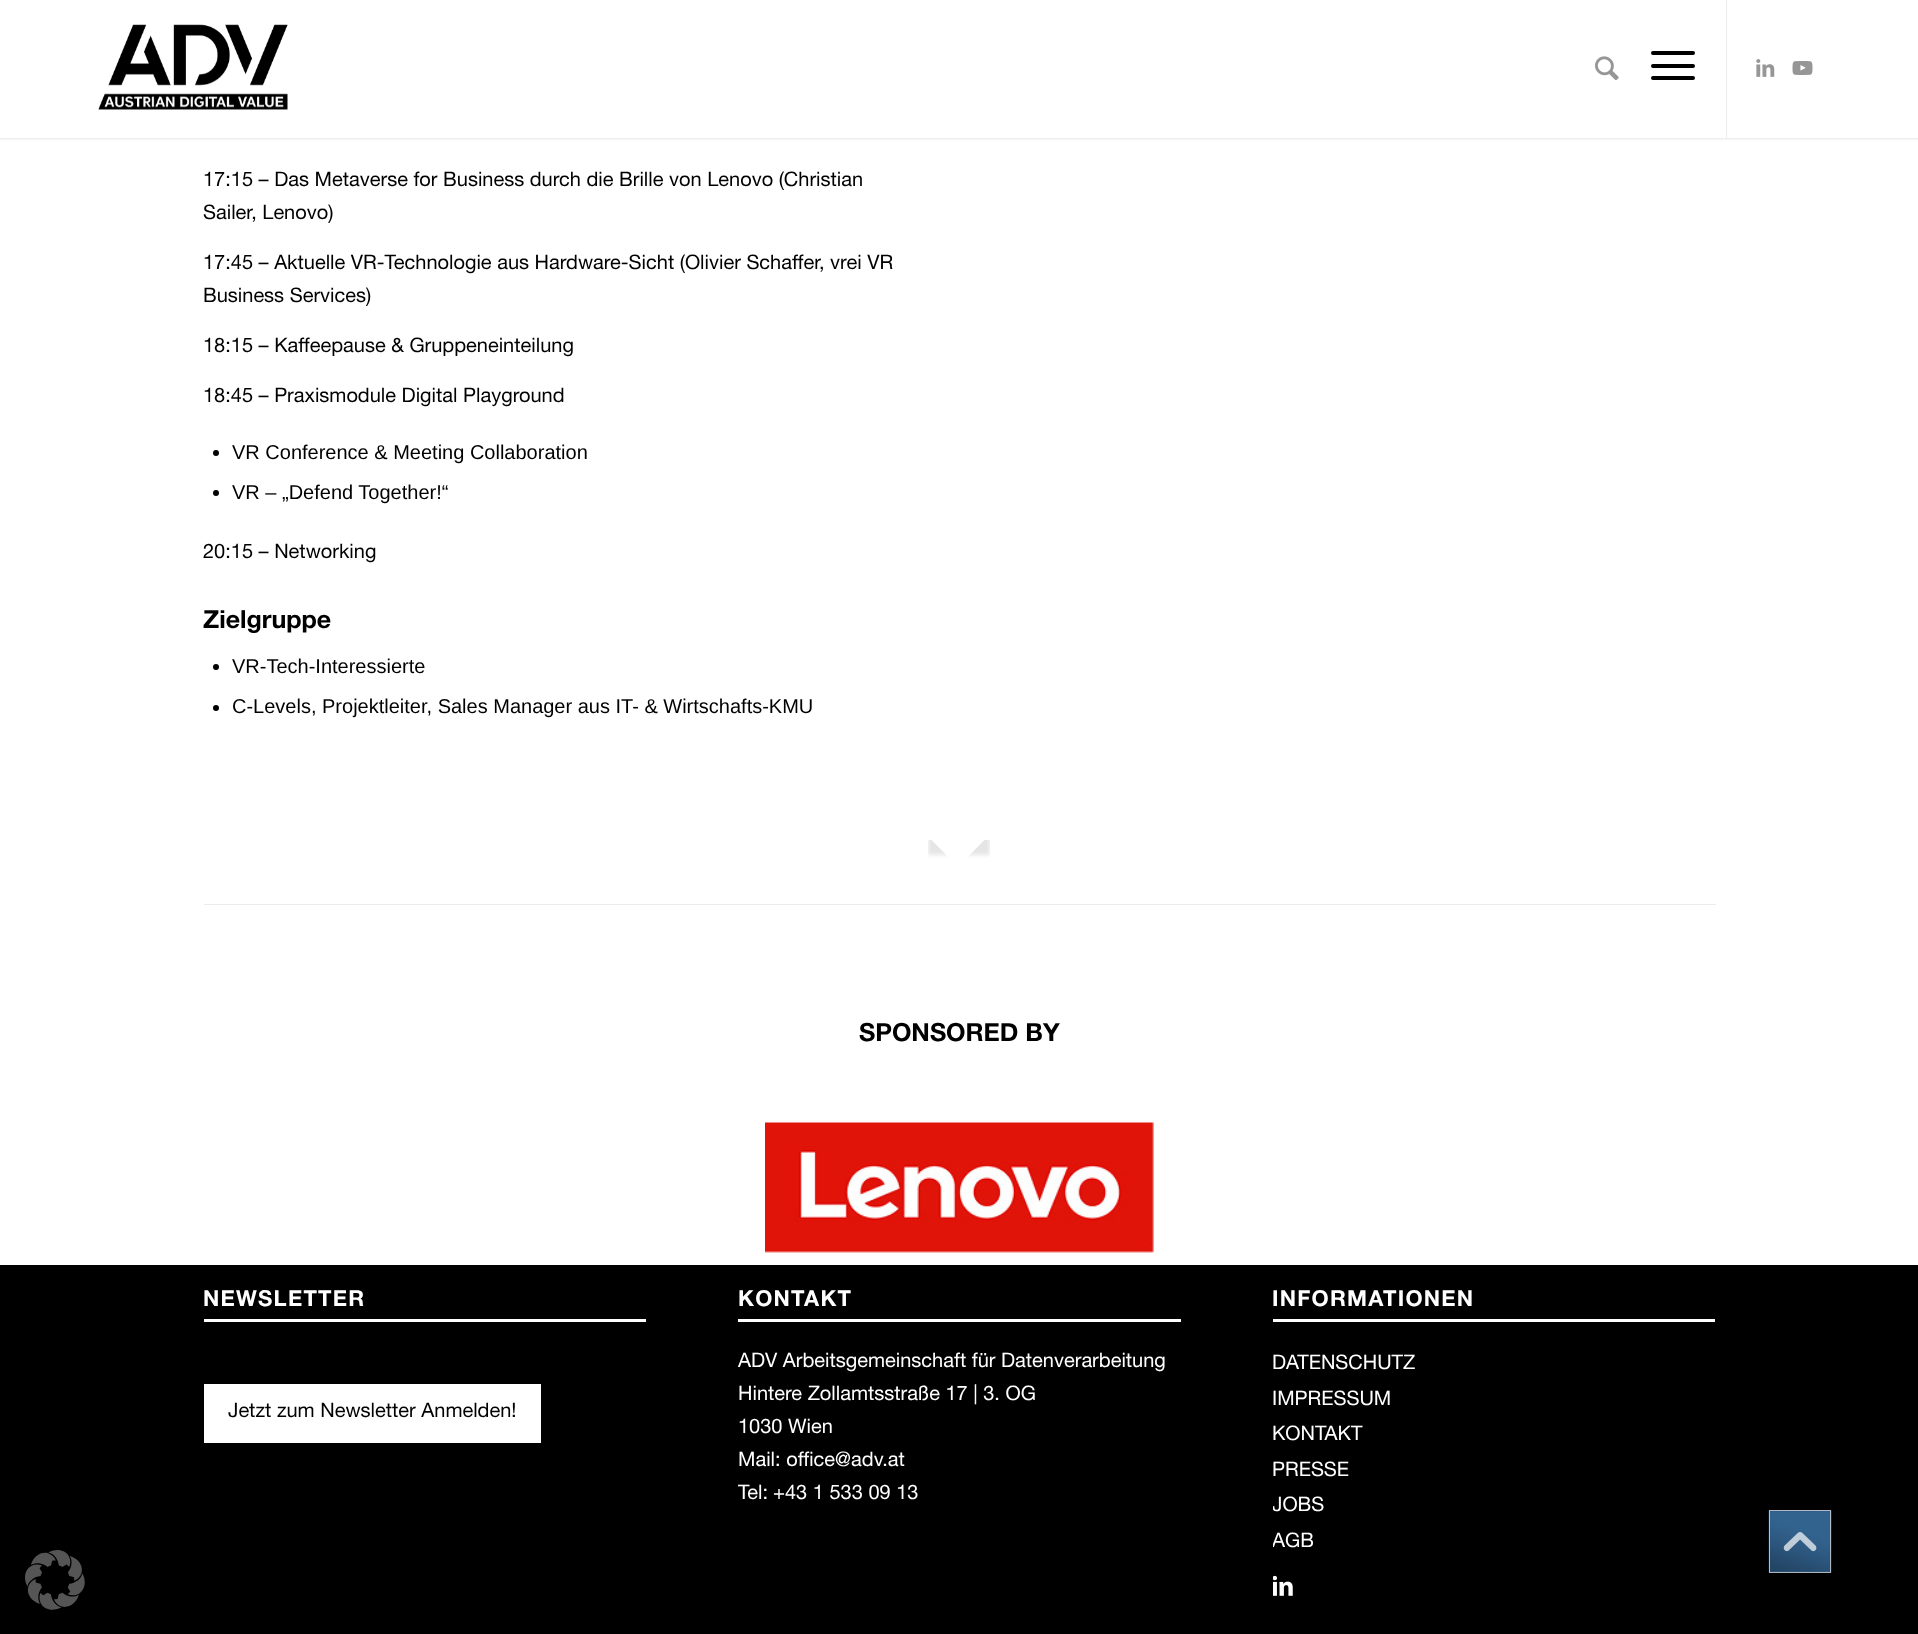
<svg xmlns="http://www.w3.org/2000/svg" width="1918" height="1634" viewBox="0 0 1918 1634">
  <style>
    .t1 { font: 20px Helvetica Neue; fill: #000; }
    .t2 { font: 20px Liberation Sans; fill: #000; }
    .t3 { font: bold 25px Helvetica Neue; fill: #000; }
    .t4 { font: bold 22px Helvetica Neue; letter-spacing: 1.25px; fill: #fff; }
    .t5 { font: 20px Helvetica Neue; fill: #fff; }
  </style>
  <defs>
    <clipPath id="clip1"><rect x="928" y="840" width="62" height="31"/></clipPath>
    <clipPath id="clip2"><rect x="928" y="840" width="62" height="31"/></clipPath>
    <clipPath id="clip3"><rect x="738" y="1271" width="443" height="258"/></clipPath>
    <clipPath id="clip4"><rect x="1273" y="1271" width="442" height="339"/></clipPath>
  </defs>
  <rect width="100%" height="100%" fill="#fff"/>
  <rect x="-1" y="-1" width="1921" height="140" fill="#0000001a" filter="blur(1px)"/>
  <rect x="0" y="0" width="1918" height="138" fill="#fff"/>
  <image x="98" y="24" width="190" height="86" href="images/1.png"/>
  <rect x="1726" y="0" width="1" height="138" fill="#ebebeb"/>
  <image x="1595" y="56" width="24" height="25" href="images/2.png"/>
  <rect x="1651" y="64" width="44" height="4" rx="2" fill="#000"/>
  <rect x="1651" y="51" width="44" height="4" rx="2" fill="#000"/>
  <rect x="1651" y="76" width="44" height="4" rx="2" fill="#000"/>
  <image x="1756" y="59" width="19" height="18" href="images/3.png"/>
  <image x="1792" y="61" width="21" height="14" href="images/4.png"/>
  <text x="203" y="186" class="t1">17:15 – Das Metaverse for Business durch die Brille von Lenovo (Christian</text>
  <text x="203" y="219" class="t1">Sailer, Lenovo)</text>
  <text x="203" y="269" class="t1">17:45 – Aktuelle VR-Technologie aus Hardware-Sicht (Olivier Schaffer, vrei VR</text>
  <text x="203" y="302" class="t1">Business Services)</text>
  <text x="203" y="352" class="t1">18:15 – Kaffeepause &amp; Gruppeneinteilung</text>
  <text x="203" y="402" class="t1">18:45 – Praxismodule Digital Playground</text>
  <circle cx="216" cy="453" r="3" fill="#000"/>
  <text x="232" y="459" class="t2">VR Conference &amp; Meeting Collaboration</text>
  <circle cx="216" cy="493" r="3" fill="#000"/>
  <text x="232" y="499" class="t2">VR – „Defend Together!“</text>
  <text x="203" y="558" class="t1">20:15 – Networking</text>
  <text x="203" y="628" class="t3">Zielgruppe</text>
  <circle cx="216" cy="667" r="3" fill="#000"/>
  <text x="232" y="673" class="t2">VR-Tech-Interessierte</text>
  <circle cx="216" cy="708" r="3" fill="#000"/>
  <text x="232" y="713" class="t2">C-Levels, Projektleiter, Sales Manager aus IT- &amp; Wirtschafts-KMU</text>
  <g clip-path="url(#clip1)">
    <rect x="928" y="793" width="62" height="62" fill="#0000001a" filter="blur(2px)"/>
  </g>
  <g clip-path="url(#clip2)">
    <path d="M958 778L1002 822L958 867L914 822Z" fill="#fff"/>
  </g>
  <rect x="204" y="904" width="1512" height="1" fill="#ebebeb"/>
  <text x="859" y="1041" class="t3">SPONSORED BY</text>
  <image x="765" y="1122" width="389" height="131" href="images/5.png"/>
  <rect x="0" y="1265" width="1918" height="369" fill="#000"/>
  <rect x="204" y="1319" width="442" height="3" fill="#fff"/>
  <text x="203" y="1306" class="t4">NEWSLETTER</text>
  <rect x="204" y="1384" width="337" height="59" fill="#fff"/>
  <text x="228" y="1417" class="t1">Jetzt zum Newsletter Anmelden!</text>
  <rect x="738" y="1319" width="443" height="3" fill="#fff"/>
  <text x="738" y="1306" class="t4">KONTAKT</text>
  <text x="738" y="1367" class="t5">ADV Arbeitsgemeinschaft für Datenverarbeitung</text>
  <text x="738" y="1400" class="t5">Hintere Zollamtsstraße 17 | 3. OG</text>
  <text x="738" y="1433" class="t5">1030 Wien</text>
  <text x="738" y="1466" class="t5">Mail: office@adv.at</text>
  <g clip-path="url(#clip3)">
    <text x="738" y="1499" class="t5">Tel:</text>
  </g>
  <text x="773" y="1499" class="t5">+43 1 533 09 13</text>
  <rect x="1273" y="1319" width="442" height="3" fill="#fff"/>
  <text x="1272" y="1306" class="t4">INFORMATIONEN</text>
  <text x="1272" y="1369" class="t5">DATENSCHUTZ</text>
  <text x="1272" y="1405" class="t5">IMPRESSUM</text>
  <text x="1272" y="1440" class="t5">KONTAKT</text>
  <text x="1272" y="1476" class="t5">PRESSE</text>
  <g clip-path="url(#clip4)">
    <text x="1272" y="1511" class="t5">JOBS</text>
    <text x="1272" y="1547" class="t5">AGB</text>
  </g>
  <image x="1273" y="1575" width="20" height="21" href="images/6.png"/>
  <image x="1768" y="1510" width="64" height="63" href="images/7.png"/>
  <rect x="1769.5" y="1510.5" width="61" height="62" fill="none" stroke="#ebebebb3"/>
  <image x="1783" y="1532" width="34" height="20" href="images/8.png"/>
  <image x="25" y="1550" width="60" height="60" href="images/9.png"/>
</svg>
